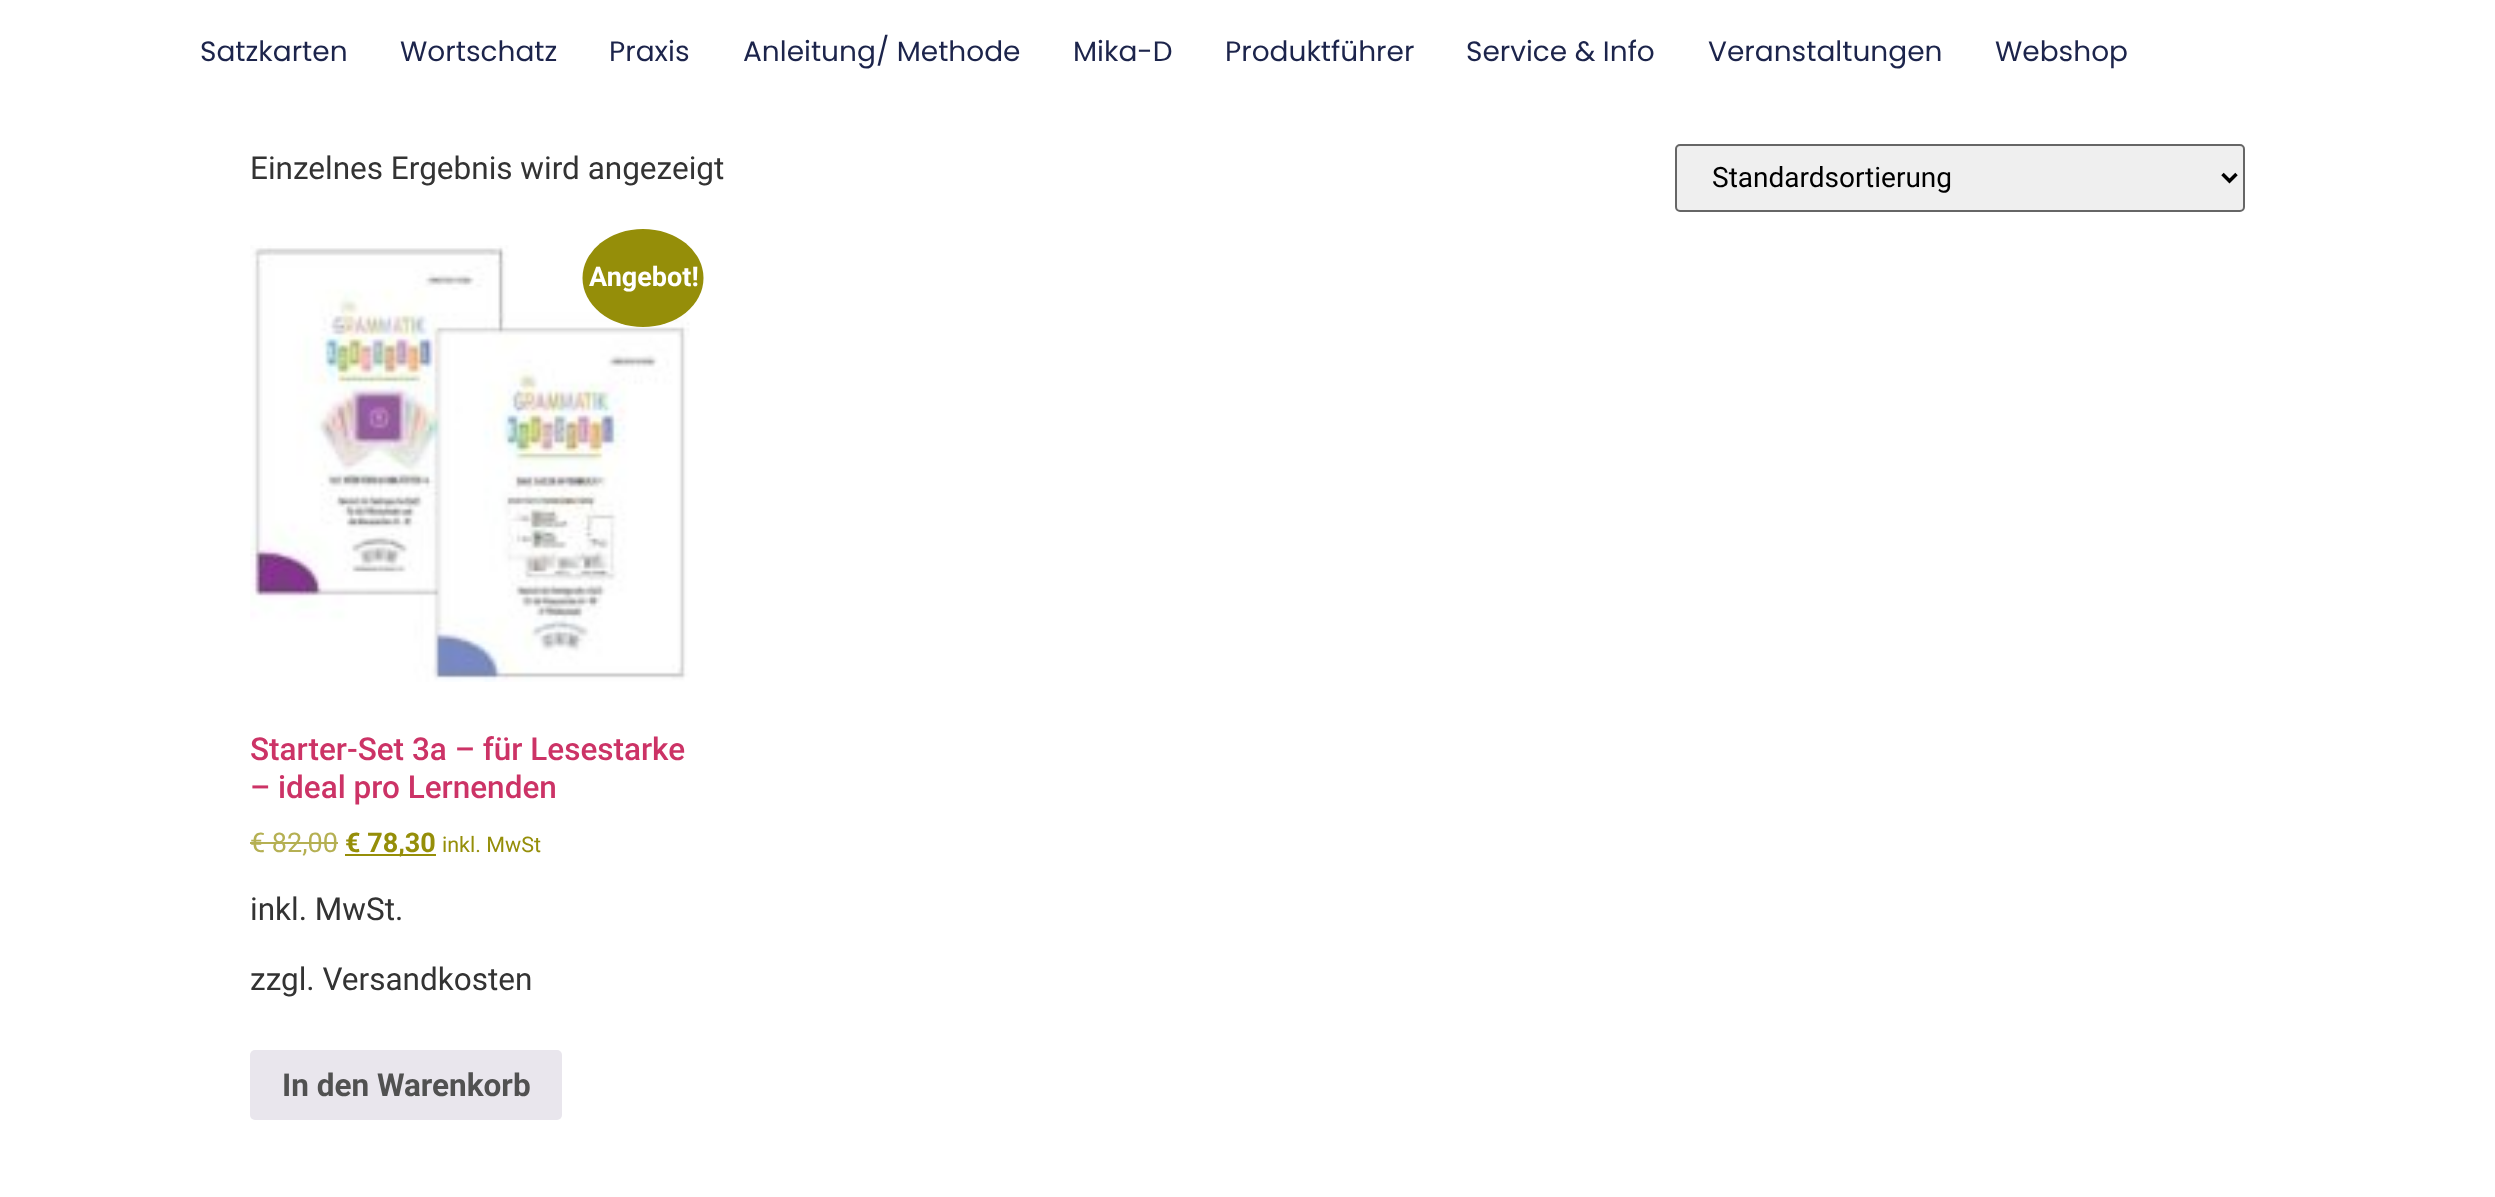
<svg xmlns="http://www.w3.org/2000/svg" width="2495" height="1197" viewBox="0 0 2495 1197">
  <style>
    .t1 { font: 28px Poppins; fill: #1c244b; }
    .t2 { font: 31.5px Roboto; fill: #333; }
    .t3 { font: 28px Roboto; fill: #000; }
    .t4 { font: bold 27px Roboto; fill: #fff; }
    .t5 { font: 500 31.5px Roboto; fill: #c36; }
    .t6 { font: 27px Roboto; fill: #b5b053; }
    .t7 { font: bold 27px Roboto; fill: #958e09; }
    .t8 { font: 21.5px Roboto; fill: #958e09; }
    .t9 { font: bold 31.5px Roboto; fill: #515151; }
  </style>
  <rect width="100%" height="100%" fill="#fff"/>
  <text x="200" y="61" class="t1">Satzkarten</text>
  <text x="400" y="61" class="t1">Wortschatz</text>
  <text x="609" y="61" class="t1">Praxis</text>
  <text x="743" y="61" class="t1">Anleitung/ Methode</text>
  <text x="1073" y="61" class="t1">Mika-D</text>
  <text x="1225" y="61" class="t1">Produktführer</text>
  <text x="1466" y="61" class="t1">Service &amp; Info</text>
  <text x="1708" y="61" class="t1">Veranstaltungen</text>
  <text x="1995" y="61" class="t1">Webshop</text>
  <text x="250" y="179" class="t2">Einzelnes Ergebnis wird angezeigt</text>
  <rect x="1676" y="145" width="568" height="66" rx="4" fill="#efefef" stroke="#666" stroke-width="2"/>
  <path d="M2222.5 174L2229.5 181L2236.5 174" fill="none" stroke="#000" stroke-width="3.5"/>
  <text x="1712" y="187" class="t3">Standardsortierung</text>
  <image x="250" y="245" width="440" height="437" href="images/1.png"/>
  <ellipse cx="643" cy="278" rx="60.5" ry="49" fill="#958e09"/>
  <text x="589" y="286" class="t4">Angebot!</text>
  <text x="250" y="760" class="t5">Starter-Set 3a – für Lesestarke</text>
  <text x="250" y="798" class="t5">– ideal pro Lernenden</text>
  <text x="250" y="852" class="t6">€ 82,00</text>
  <rect x="250" y="842" width="88" height="2" fill="#b5b053"/>
  <rect x="345" y="854" width="91" height="2" fill="#958e09"/>
  <text x="345" y="852" class="t7">€ 78,30</text>
  <text x="442" y="852" class="t8">inkl. MwSt</text>
  <text x="250" y="920" class="t2">inkl. MwSt.</text>
  <text x="250" y="990" class="t2">zzgl. Versandkosten</text>
  <rect x="250" y="1050" width="312" height="70" rx="5" fill="#e9e6ed"/>
  <text x="282" y="1096" class="t9">In den Warenkorb</text>
</svg>
